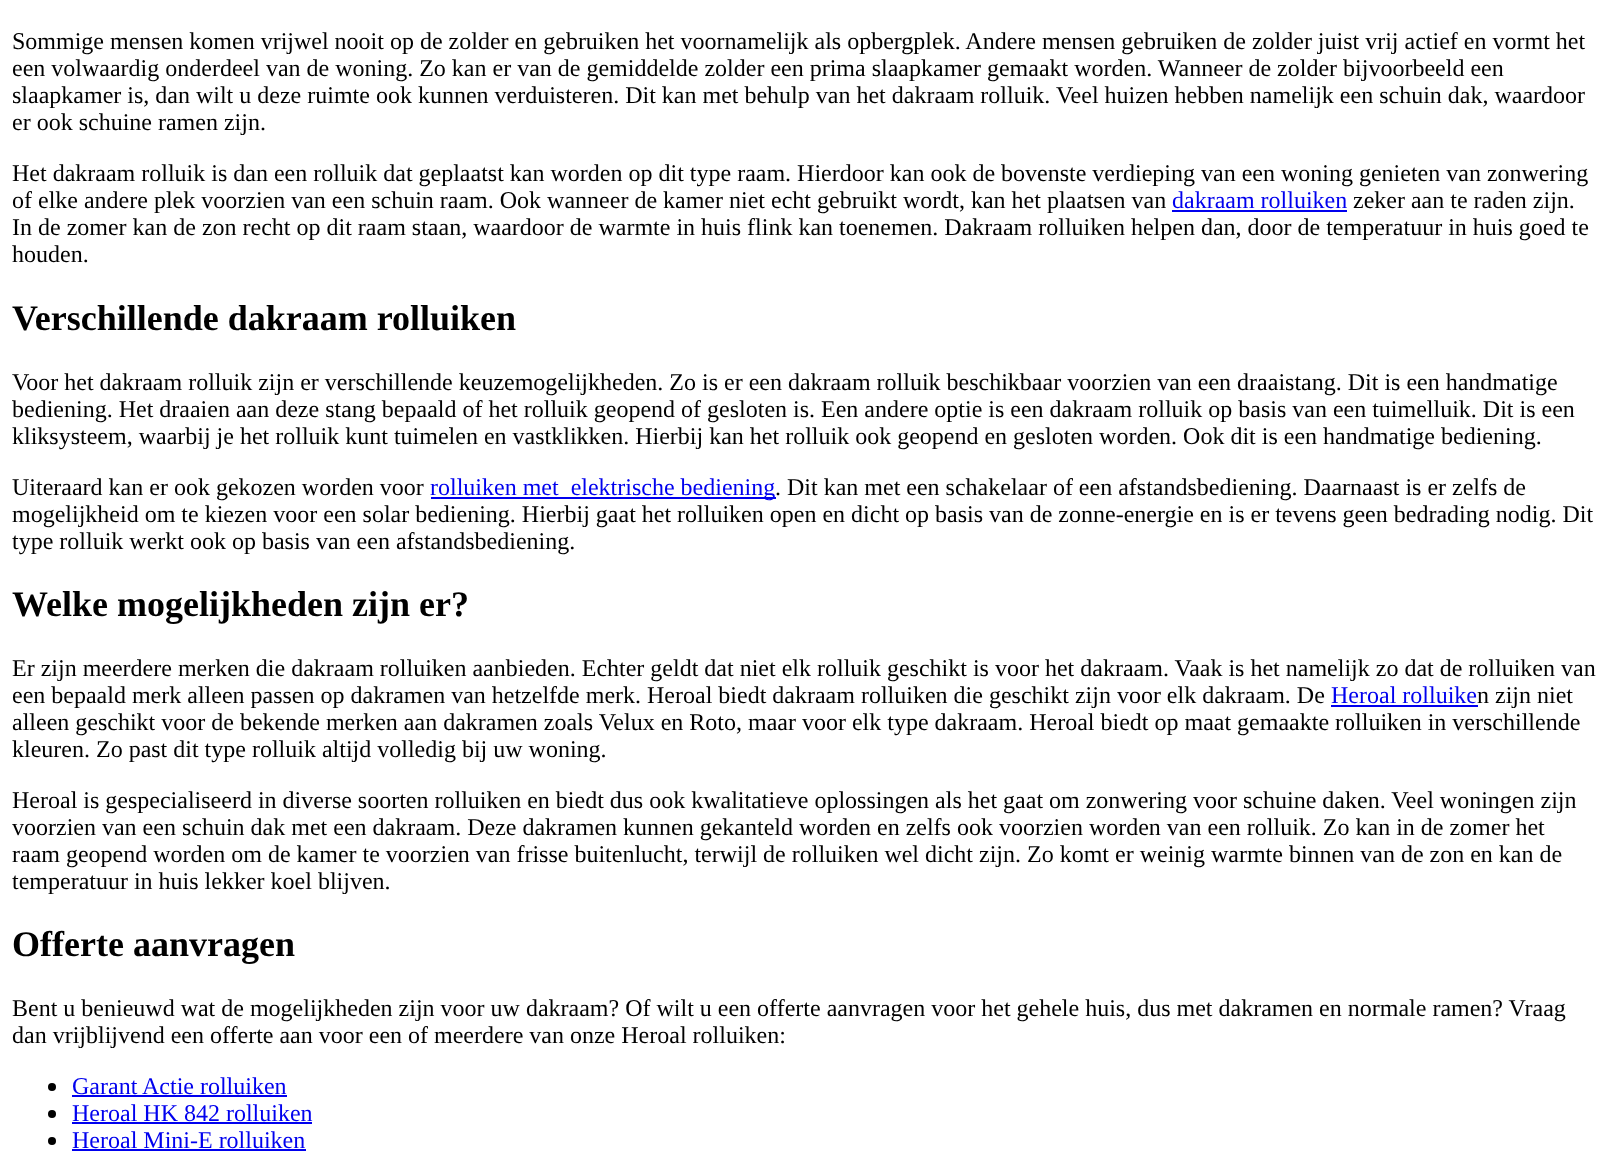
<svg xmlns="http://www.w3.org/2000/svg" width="1608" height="1167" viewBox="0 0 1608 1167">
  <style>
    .t1 { font: 24px Liberation Serif; fill: #000; }
    .t2 { font: 24px Liberation Serif; fill: #00e; }
    .t3 { font: bold 36px Liberation Serif; fill: #000; }
  </style>
  <rect width="100%" height="100%" fill="#fff"/>
  <text x="12" y="49" class="t1">Sommige mensen komen vrijwel nooit op de zolder en gebruiken het voornamelijk als opbergplek. Andere mensen gebruiken de zolder juist vrij actief en vormt het</text>
  <text x="12" y="76" class="t1">een volwaardig onderdeel van de woning. Zo kan er van de gemiddelde zolder een prima slaapkamer gemaakt worden. Wanneer de zolder bijvoorbeeld een</text>
  <text x="12" y="103" class="t1">slaapkamer is, dan wilt u deze ruimte ook kunnen verduisteren. Dit kan met behulp van het dakraam rolluik. Veel huizen hebben namelijk een schuin dak, waardoor</text>
  <text x="12" y="130" class="t1">er ook schuine ramen zijn.</text>
  <text x="12" y="181" class="t1">Het dakraam rolluik is dan een rolluik dat geplaatst kan worden op dit type raam. Hierdoor kan ook de bovenste verdieping van een woning genieten van zonwering</text>
  <text x="12" y="208" class="t1">of elke andere plek voorzien van een schuin raam. Ook wanneer de kamer niet echt gebruikt wordt, kan het plaatsen van</text>
  <text x="1172" y="208" class="t2">dakraam rolluiken</text>
  <rect x="1172" y="210" width="175" height="2" fill="#00e"/>
  <text x="1353" y="208" class="t1">zeker aan te raden zijn.</text>
  <text x="12" y="235" class="t1">In de zomer kan de zon recht op dit raam staan, waardoor de warmte in huis flink kan toenemen. Dakraam rolluiken helpen dan, door de temperatuur in huis goed te</text>
  <text x="12" y="262" class="t1">houden.</text>
  <text x="12" y="330" class="t3">Verschillende dakraam rolluiken</text>
  <text x="12" y="390" class="t1">Voor het dakraam rolluik zijn er verschillende keuzemogelijkheden. Zo is er een dakraam rolluik beschikbaar voorzien van een draaistang. Dit is een handmatige</text>
  <text x="12" y="417" class="t1">bediening. Het draaien aan deze stang bepaald of het rolluik geopend of gesloten is. Een andere optie is een dakraam rolluik op basis van een tuimelluik. Dit is een</text>
  <text x="12" y="444" class="t1">kliksysteem, waarbij je het rolluik kunt tuimelen en vastklikken. Hierbij kan het rolluik ook geopend en gesloten worden. Ook dit is een handmatige bediening.</text>
  <text x="12" y="495" class="t1">Uiteraard kan er ook gekozen worden voor</text>
  <rect x="431" y="497" width="345" height="2" fill="#00e"/>
  <text x="430" y="495" class="t2" xml:space="preserve">rolluiken met  elektrische bediening</text>
  <text x="775" y="495" class="t1">. Dit kan met een schakelaar of een afstandsbediening. Daarnaast is er zelfs de</text>
  <text x="12" y="522" class="t1">mogelijkheid om te kiezen voor een solar bediening. Hierbij gaat het rolluiken open en dicht op basis van de zonne-energie en is er tevens geen bedrading nodig. Dit</text>
  <text x="12" y="549" class="t1">type rolluik werkt ook op basis van een afstandsbediening.</text>
  <text x="12" y="616" class="t3">Welke mogelijkheden zijn er?</text>
  <text x="12" y="676" class="t1">Er zijn meerdere merken die dakraam rolluiken aanbieden. Echter geldt dat niet elk rolluik geschikt is voor het dakraam. Vaak is het namelijk zo dat de rolluiken van</text>
  <text x="12" y="703" class="t1">een bepaald merk alleen passen op dakramen van hetzelfde merk. Heroal biedt dakraam rolluiken die geschikt zijn voor elk dakraam. De</text>
  <text x="1331" y="703" class="t2">Heroal rolluike</text>
  <rect x="1331" y="705" width="147" height="2" fill="#00e"/>
  <text x="1477" y="703" class="t1">n zijn niet</text>
  <text x="12" y="730" class="t1">alleen geschikt voor de bekende merken aan dakramen zoals Velux en Roto, maar voor elk type dakraam. Heroal biedt op maat gemaakte rolluiken in verschillende</text>
  <text x="12" y="757" class="t1">kleuren. Zo past dit type rolluik altijd volledig bij uw woning.</text>
  <text x="12" y="808" class="t1">Heroal is gespecialiseerd in diverse soorten rolluiken en biedt dus ook kwalitatieve oplossingen als het gaat om zonwering voor schuine daken. Veel woningen zijn</text>
  <text x="12" y="835" class="t1">voorzien van een schuin dak met een dakraam. Deze dakramen kunnen gekanteld worden en zelfs ook voorzien worden van een rolluik. Zo kan in de zomer het</text>
  <text x="12" y="862" class="t1">raam geopend worden om de kamer te voorzien van frisse buitenlucht, terwijl de rolluiken wel dicht zijn. Zo komt er weinig warmte binnen van de zon en kan de</text>
  <text x="12" y="889" class="t1">temperatuur in huis lekker koel blijven.</text>
  <text x="12" y="956" class="t3">Offerte aanvragen</text>
  <text x="12" y="1016" class="t1">Bent u benieuwd wat de mogelijkheden zijn voor uw dakraam? Of wilt u een offerte aanvragen voor het gehele huis, dus met dakramen en normale ramen? Vraag</text>
  <text x="12" y="1043" class="t1">dan vrijblijvend een offerte aan voor een of meerdere van onze Heroal rolluiken:</text>
  <circle cx="52" cy="1087" r="4" fill="#000"/>
  <text x="72" y="1094" class="t2">Garant Actie rolluiken</text>
  <rect x="72" y="1095" width="215" height="2" fill="#00e"/>
  <circle cx="52" cy="1114" r="4" fill="#000"/>
  <text x="72" y="1121" class="t2">Heroal HK 842 rolluiken</text>
  <rect x="72" y="1122" width="240" height="2" fill="#00e"/>
  <circle cx="52" cy="1141" r="4" fill="#000"/>
  <text x="72" y="1148" class="t2">Heroal Mini-E rolluiken</text>
  <rect x="72" y="1149" width="234" height="2" fill="#00e"/>
</svg>
